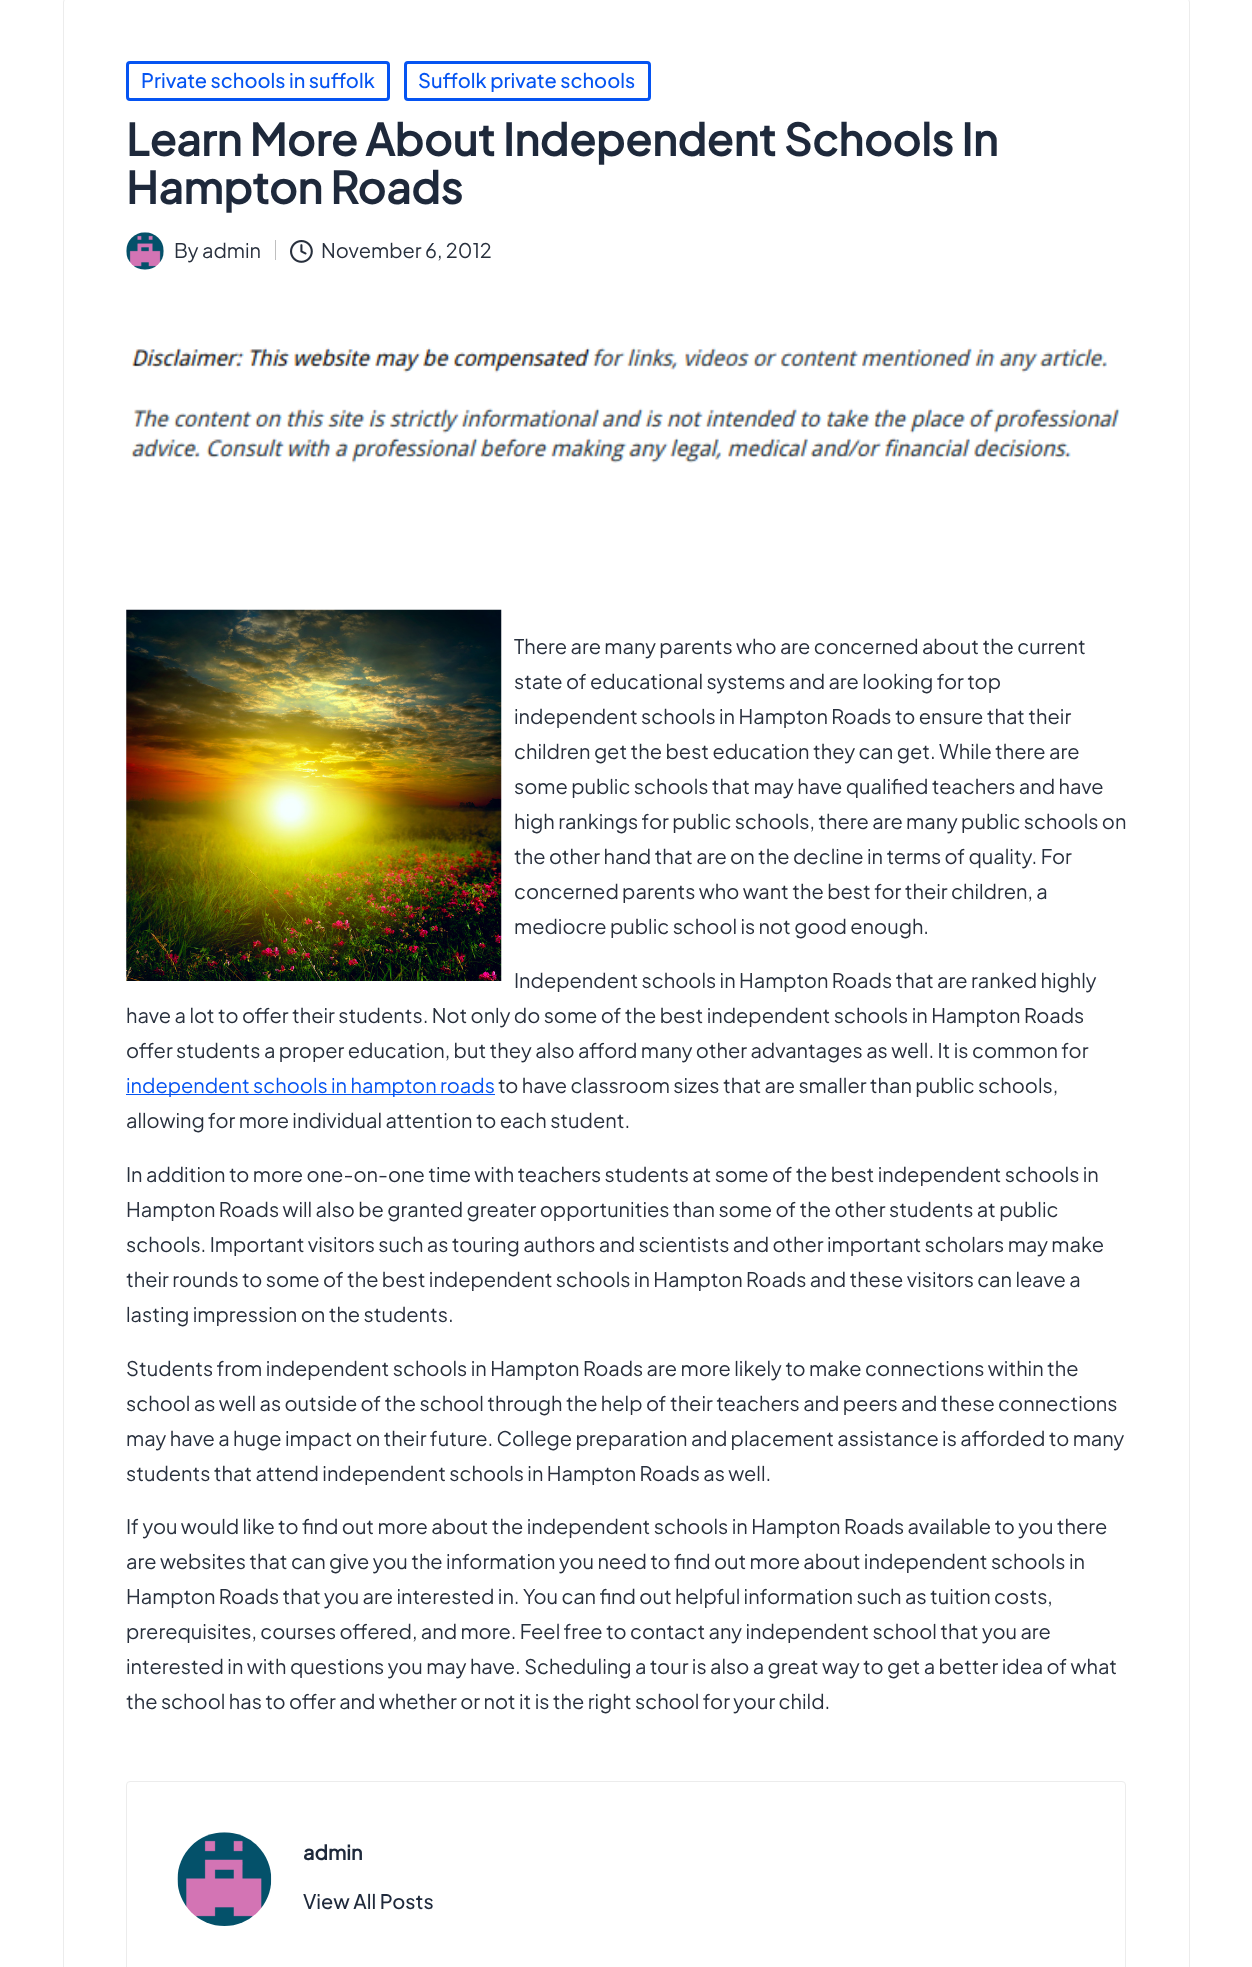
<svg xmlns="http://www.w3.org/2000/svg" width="1252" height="1967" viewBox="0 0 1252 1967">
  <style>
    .t1 { font: 500 20px Plus Jakarta Sans; fill: #0554f2; }
    .t2 { font: bold 43.75px Plus Jakarta Sans; fill: #1e293b; }
    .t3 { font: 20px Plus Jakarta Sans; fill: #28303d; }
    .t4 { font: 20px Plus Jakarta Sans; fill: #0554f2; }
    .t5 { font: bold 20px Plus Jakarta Sans; fill: #1e293b; }
    .t6 { font: 500 20px Plus Jakarta Sans; fill: #1e293b; }
  </style>
  <rect width="100%" height="100%" fill="#fff"/>
  <rect x="63.5" y="-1.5" width="1126" height="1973" rx="3.5" fill="none" stroke="#ececec"/>
  <rect x="127.5" y="62.5" width="261" height="37" rx="2.5" fill="none" stroke="#0554f2" stroke-width="3"/>
  <text x="141" y="88" class="t1">Private schools in suffolk</text>
  <rect x="405.5" y="62.5" width="244" height="37" rx="2.5" fill="none" stroke="#0554f2" stroke-width="3"/>
  <text x="418" y="88" class="t1">Suffolk private schools</text>
  <text x="126" y="156" class="t2">Learn More About Independent Schools In</text>
  <text x="126" y="204" class="t2">Hampton Roads</text>
  <image x="126" y="232" width="38" height="38" href="images/1.png"/>
  <text x="174" y="258" class="t3">By admin</text>
  <rect x="275" y="240" width="1" height="20" fill="#bfbfbf"/>
  <image x="290" y="240" width="23" height="23" href="images/2.png"/>
  <text x="321" y="258" class="t3">November 6, 2012</text>
  <image x="131" y="347" width="989" height="116" href="images/3.png"/>
  <image x="126" y="609" width="376" height="372" href="images/4.png"/>
  <text x="514" y="654" class="t3">There are many parents who are concerned about the current</text>
  <text x="514" y="689" class="t3">state of educational systems and are looking for top</text>
  <text x="514" y="724" class="t3">independent schools in Hampton Roads to ensure that their</text>
  <text x="514" y="759" class="t3">children get the best education they can get. While there are</text>
  <text x="514" y="794" class="t3">some public schools that may have qualified teachers and have</text>
  <text x="514" y="829" class="t3">high rankings for public schools, there are many public schools on</text>
  <text x="514" y="864" class="t3">the other hand that are on the decline in terms of quality. For</text>
  <text x="514" y="899" class="t3">concerned parents who want the best for their children, a</text>
  <text x="514" y="934" class="t3">mediocre public school is not good enough.</text>
  <text x="514" y="988" class="t3">Independent schools in Hampton Roads that are ranked highly</text>
  <text x="126" y="1023" class="t3">have a lot to offer their students. Not only do some of the best independent schools in Hampton Roads</text>
  <text x="126" y="1058" class="t3">offer students a proper education, but they also afford many other advantages as well. It is common for</text>
  <rect x="126" y="1094" width="369" height="1" fill="#0554f2"/>
  <text x="126" y="1093" class="t4">independent schools in hampton roads</text>
  <text x="498" y="1093" class="t3">to have classroom sizes that are smaller than public schools,</text>
  <text x="126" y="1128" class="t3">allowing for more individual attention to each student.</text>
  <text x="126" y="1182" class="t3">In addition to more one-on-one time with teachers students at some of the best independent schools in</text>
  <text x="126" y="1217" class="t3">Hampton Roads will also be granted greater opportunities than some of the other students at public</text>
  <text x="126" y="1252" class="t3">schools. Important visitors such as touring authors and scientists and other important scholars may make</text>
  <text x="126" y="1287" class="t3">their rounds to some of the best independent schools in Hampton Roads and these visitors can leave a</text>
  <text x="126" y="1322" class="t3">lasting impression on the students.</text>
  <text x="126" y="1376" class="t3">Students from independent schools in Hampton Roads are more likely to make connections within the</text>
  <text x="126" y="1411" class="t3">school as well as outside of the school through the help of their teachers and peers and these connections</text>
  <text x="126" y="1446" class="t3">may have a huge impact on their future. College preparation and placement assistance is afforded to many</text>
  <text x="126" y="1481" class="t3">students that attend independent schools in Hampton Roads as well.</text>
  <text x="126" y="1534" class="t3">If you would like to find out more about the independent schools in Hampton Roads available to you there</text>
  <text x="126" y="1569" class="t3">are websites that can give you the information you need to find out more about independent schools in</text>
  <text x="126" y="1604" class="t3">Hampton Roads that you are interested in. You can find out helpful information such as tuition costs,</text>
  <text x="126" y="1639" class="t3">prerequisites, courses offered, and more. Feel free to contact any independent school that you are</text>
  <text x="126" y="1674" class="t3">interested in with questions you may have. Scheduling a tour is also a great way to get a better idea of what</text>
  <text x="126" y="1709" class="t3">the school has to offer and whether or not it is the right school for your child.</text>
  <rect x="126.5" y="1781.5" width="999" height="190" rx="3.5" fill="none" stroke="#ececec"/>
  <image x="177" y="1832" width="95" height="94" href="images/5.png"/>
  <text x="303" y="1860" class="t5">admin</text>
  <text x="303" y="1909" class="t6">View All Posts</text>
</svg>
